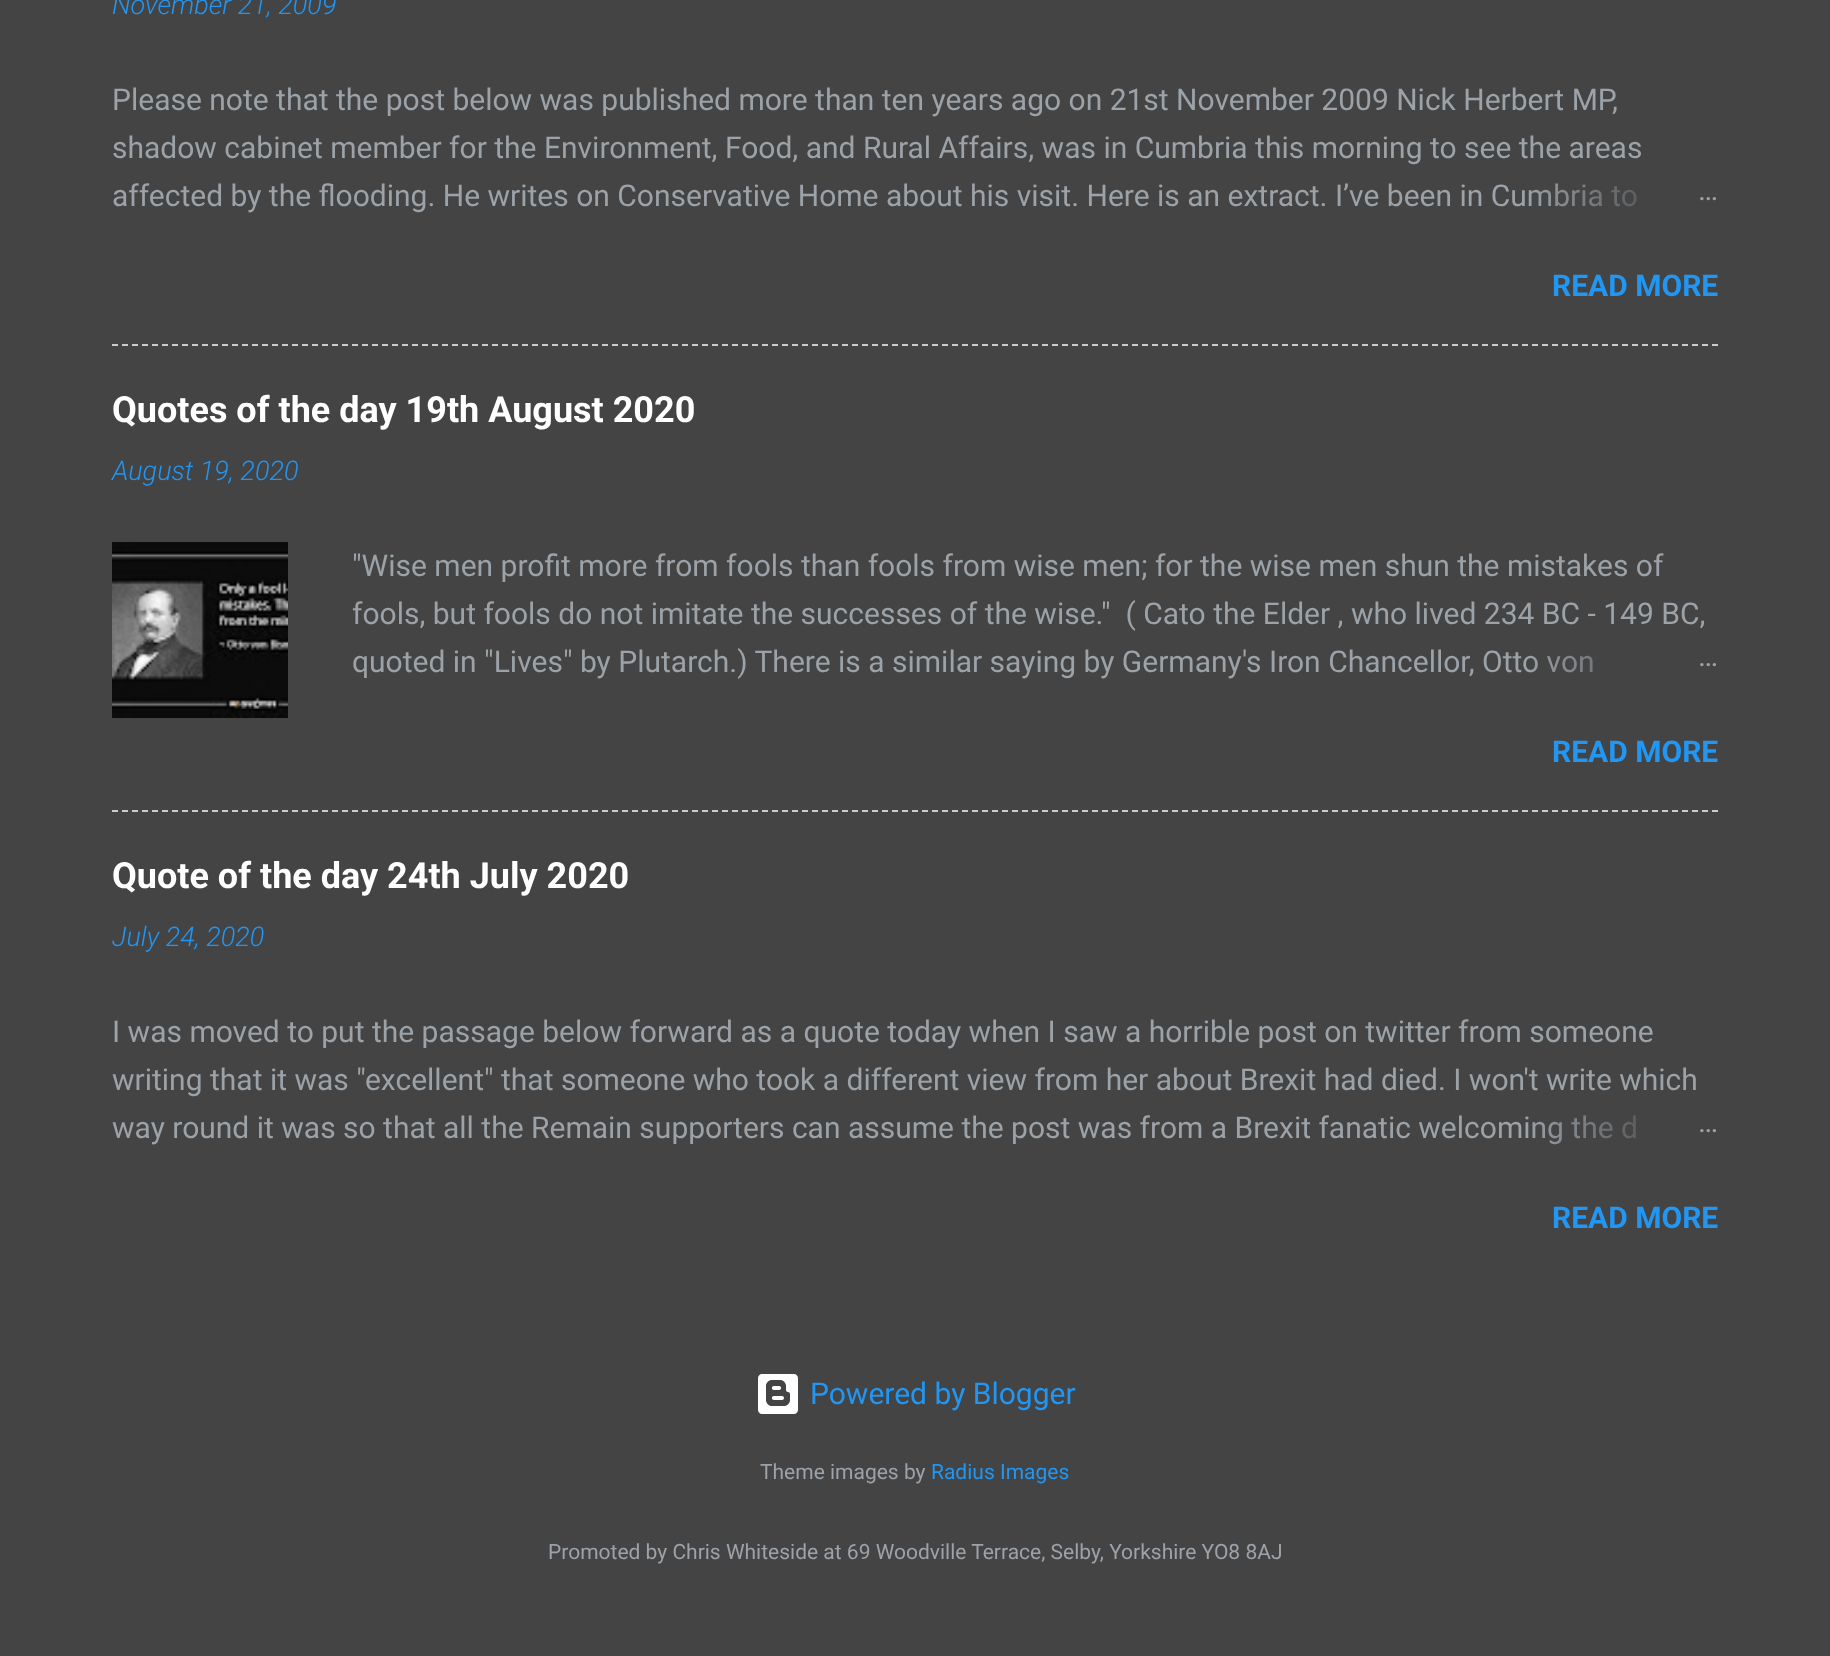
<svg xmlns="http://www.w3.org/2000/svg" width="1830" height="1656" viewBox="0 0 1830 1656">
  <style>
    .t1 { font: italic 300 27px Roboto; fill: #2196f3; }
    .t2 { font: 30px Roboto; fill: #9ba2a8; }
    .t3 { font: bold 30px Roboto; fill: #2196f3; }
    .t4 { font: bold 36px Roboto; fill: #fff; }
    .t5 { font: 30px Roboto; fill: #2196f3; }
    .t6 { font: 21px Roboto; fill: #9ba2a8; }
    .t7 { font: 21px Roboto; fill: #2196f3; }
  </style>
  <defs>
    <linearGradient id="g1" gradientUnits="userSpaceOnUse" x1="1718" y1="196" x2="1526" y2="196"><stop offset="0" stop-color="#444"/><stop offset="0.2" stop-color="#444"/><stop offset="1" stop-color="#444" stop-opacity="0"/></linearGradient>
    <linearGradient id="g2" gradientUnits="userSpaceOnUse" x1="1718" y1="662" x2="1526" y2="662"><stop offset="0" stop-color="#444"/><stop offset="0.2" stop-color="#444"/><stop offset="1" stop-color="#444" stop-opacity="0"/></linearGradient>
    <linearGradient id="g3" gradientUnits="userSpaceOnUse" x1="1718" y1="1128" x2="1526" y2="1128"><stop offset="0" stop-color="#444"/><stop offset="0.2" stop-color="#444"/><stop offset="1" stop-color="#444" stop-opacity="0"/></linearGradient>
  </defs>
  <rect width="100%" height="100%" fill="#444"/>
  <text x="112" y="14" class="t1">November 21, 2009</text>
  <text x="112" y="110" class="t2">Please note that the post below was published more than ten years ago on 21st November 2009 Nick Herbert MP,</text>
  <text x="112" y="158" class="t2">shadow cabinet member for the Environment, Food, and Rural Affairs, was in Cumbria this morning to see the areas</text>
  <text x="112" y="206" class="t2">affected by the flooding. He writes on Conservative Home about his visit. Here is an extract. I’ve been in Cumbria to</text>
  <rect x="1530" y="183" width="107" height="24" fill="url(#g1)"/>
  <text x="1698" y="200" class="t2">…</text>
  <text x="1552" y="296" class="t3">READ MORE</text>
  <path d="M112 345H1718" fill="none" stroke="#ccc" stroke-width="2" stroke-dasharray="6 4"/>
  <text x="112" y="422" class="t4">Quotes of the day 19th August 2020</text>
  <text x="112" y="480" class="t1">August 19, 2020</text>
  <image x="112" y="542" width="176" height="176" href="images/1.png"/>
  <text x="352" y="576" class="t2">"Wise men profit more from fools than fools from wise men; for the wise men shun the mistakes of</text>
  <text x="352" y="624" class="t2" xml:space="preserve">fools, but fools do not imitate the successes of the wise."  ( Cato the Elder , who lived 234 BC - 149 BC,</text>
  <text x="352" y="672" class="t2">quoted in "Lives" by Plutarch.) There is a similar saying by Germany's Iron Chancellor, Otto von</text>
  <rect x="1530" y="655" width="63" height="18" fill="url(#g2)"/>
  <text x="1698" y="666" class="t2">…</text>
  <text x="1552" y="762" class="t3">READ MORE</text>
  <path d="M112 811H1718" fill="none" stroke="#ccc" stroke-width="2" stroke-dasharray="6 4"/>
  <text x="112" y="888" class="t4">Quote of the day 24th July 2020</text>
  <text x="112" y="946" class="t1">July 24, 2020</text>
  <text x="112" y="1042" class="t2">I was moved to put the passage below forward as a quote today when I saw a horrible post on twitter from someone</text>
  <text x="112" y="1090" class="t2">writing that it was "excellent" that someone who took a different view from her about Brexit had died. I won't write which</text>
  <text x="112" y="1138" class="t2">way round it was so that all the Remain supporters can assume the post was from a Brexit fanatic welcoming the d</text>
  <rect x="1533" y="1115" width="103" height="30" fill="url(#g3)"/>
  <text x="1698" y="1132" class="t2">…</text>
  <text x="1552" y="1228" class="t3">READ MORE</text>
  <image x="758" y="1374" width="40" height="40" href="images/2.png"/>
  <text x="810" y="1404" class="t5">Powered by Blogger</text>
  <text x="760" y="1479" class="t6">Theme images by</text>
  <text x="931" y="1479" class="t7">Radius Images</text>
  <text x="548" y="1559" class="t6">Promoted by Chris Whiteside at 69 Woodville Terrace, Selby, Yorkshire YO8 8AJ</text>
</svg>
